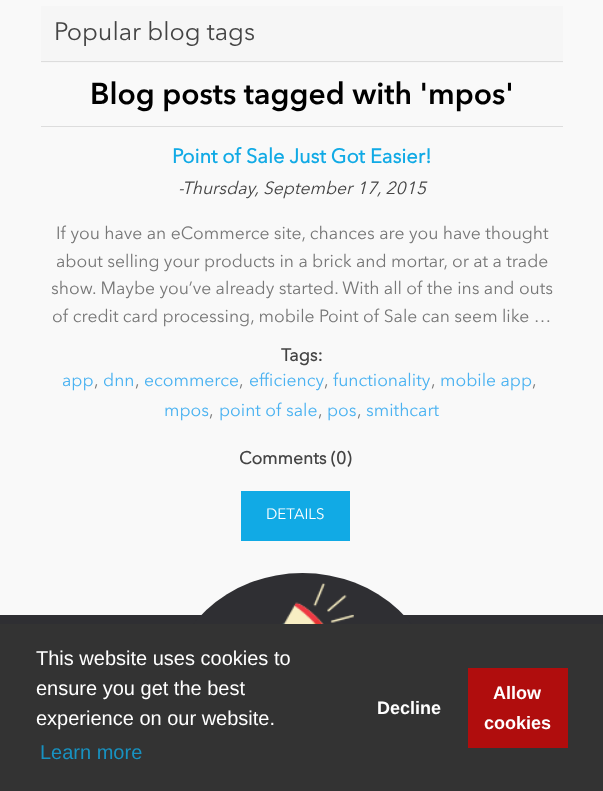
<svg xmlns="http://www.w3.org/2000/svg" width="603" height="791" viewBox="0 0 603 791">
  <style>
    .t1 { font: 25px Avenir Next; fill: #444; }
    .t2 { font: 600 30px Avenir Next; fill: #000; }
    .t3 { font: bold 20px Avenir Next; fill: #11aae5; }
    .t4 { font: italic 17.5px Avenir Next; fill: #444; }
    .t5 { font: 17.5px Avenir Next; fill: #777; }
    .t6 { font: bold 17.5px Avenir Next; fill: #444; }
    .t7 { font: 17.5px Avenir Next; fill: #4ab2f1; }
    .t8 { font: 15px Avenir Next; fill: #fff; }
    .t9 { font: 20px Liberation Sans; fill: #fff; }
    .t10 { font: 20px Liberation Sans; fill: #1892c1; }
    .t11 { font: bold 18px Liberation Sans; fill: #fff; }
  </style>
  <rect width="100%" height="100%" fill="#f9f9f9"/>
  <rect x="41" y="6" width="522" height="57" fill="#f6f6f6"/>
  <rect x="41" y="61" width="522" height="1" fill="#ddd"/>
  <text x="54" y="40" class="t1">Popular blog tags</text>
  <rect x="41" y="126" width="522" height="1" fill="#ddd"/>
  <text x="90" y="104" class="t2">Blog posts tagged with 'mpos'</text>
  <text x="172" y="163" class="t3">Point of Sale Just Got Easier!</text>
  <text x="178" y="194" class="t4">-Thursday, September 17, 2015</text>
  <text x="56" y="239" class="t5">If you have an eCommerce site, chances are you have thought</text>
  <text x="56" y="267" class="t5">about selling your products in a brick and mortar, or at a trade</text>
  <text x="51" y="294" class="t5">show. Maybe you’ve already started. With all of the ins and outs</text>
  <text x="52" y="322" class="t5">of credit card processing, mobile Point of Sale can seem like …</text>
  <text x="281" y="361" class="t6">Tags:</text>
  <text x="62" y="386" class="t7">app</text>
  <text x="94" y="386" class="t5">,</text>
  <text x="103" y="386" class="t7">dnn</text>
  <text x="135" y="386" class="t5">,</text>
  <text x="144" y="386" class="t7">ecommerce</text>
  <text x="239" y="386" class="t5">,</text>
  <text x="249" y="386" class="t7">efficiency</text>
  <text x="324" y="386" class="t5">,</text>
  <text x="333" y="386" class="t7">functionality</text>
  <text x="431" y="386" class="t5">,</text>
  <text x="440" y="386" class="t7">mobile app</text>
  <text x="532" y="386" class="t5">,</text>
  <text x="164" y="416" class="t7">mpos</text>
  <text x="209" y="416" class="t5">,</text>
  <text x="219" y="416" class="t7">point of sale</text>
  <text x="318" y="416" class="t5">,</text>
  <text x="327" y="416" class="t7">pos</text>
  <text x="357" y="416" class="t5">,</text>
  <text x="366" y="416" class="t7">smithcart</text>
  <text x="239" y="464" class="t6">Comments (0)</text>
  <rect x="241" y="491" width="109" height="50" fill="#11aae5"/>
  <text x="266" y="519" class="t8">DETAILS</text>
  <rect x="0" y="615" width="603" height="9" fill="#2f2f33"/>
  <ellipse cx="302.5" cy="699" rx="136" ry="126" fill="#2f2f33"/>
  <image x="282" y="583" width="72" height="41" href="images/1.png"/>
  <rect x="0" y="624" width="603" height="167" fill="#333"/>
  <text x="36" y="665" class="t9">This website uses cookies to</text>
  <text x="36" y="695" class="t9">ensure you get the best</text>
  <text x="36" y="725" class="t9">experience on our website.</text>
  <text x="40" y="759" class="t10">Learn more</text>
  <text x="377" y="714" class="t11">Decline</text>
  <rect x="468" y="668" width="100" height="80" fill="#b00d0d"/>
  <text x="493" y="699" class="t11">Allow</text>
  <text x="484" y="729" class="t11">cookies</text>
</svg>
